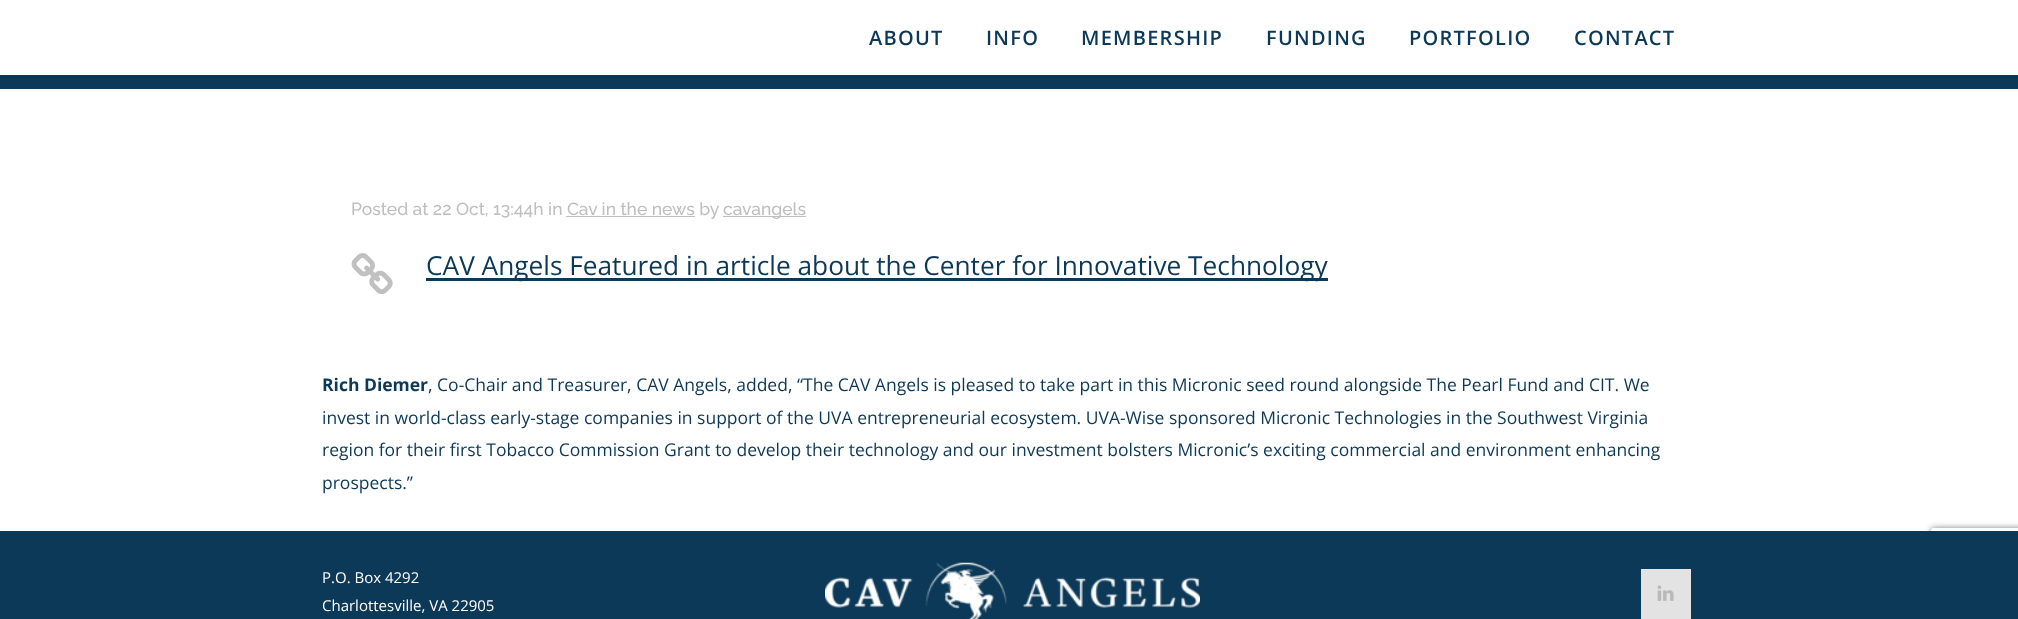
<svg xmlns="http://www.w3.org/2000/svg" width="2018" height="619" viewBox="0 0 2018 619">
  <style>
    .t1 { font: 600 20px Open Sans; letter-spacing: 1.25px; fill: #0c3957; }
    .t2 { font: 500 17.5px Raleway; fill: #bebebe; }
    .t3 { font: 26.25px Open Sans; fill: #0c3957; }
    .t4 { font: bold 17.5px Open Sans; fill: #0c3957; }
    .t5 { font: 17.5px Open Sans; fill: #0c3957; }
    .t6 { font: 15px Open Sans; fill: #fff; }
  </style>
  <defs>
    <clipPath id="clip1"><path d="M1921 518H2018V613H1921ZM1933.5 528H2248.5C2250 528 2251 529 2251 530.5V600.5C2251 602 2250 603 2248.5 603H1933.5C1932 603 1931 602 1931 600.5V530.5C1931 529 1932 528 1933.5 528Z" clip-rule="evenodd"/></clipPath>
  </defs>
  <rect width="100%" height="100%" fill="#fff"/>
  <rect x="0" y="75" width="2018" height="14" fill="#0c3957"/>
  <rect x="0" y="1" width="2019" height="75" fill="#0000001c" filter="blur(2px)"/>
  <rect x="0" y="0" width="2018" height="75" fill="#fff"/>
  <text x="869" y="45" class="t1">ABOUT</text>
  <text x="986" y="45" class="t1">INFO</text>
  <text x="1081" y="45" class="t1">MEMBERSHIP</text>
  <text x="1266" y="45" class="t1">FUNDING</text>
  <text x="1409" y="45" class="t1">PORTFOLIO</text>
  <text x="1574" y="45" class="t1">CONTACT</text>
  <text x="351" y="215" class="t2">Posted at 22 Oct, 13:44h in Cav in the news by</text>
  <rect x="723" y="216" width="83" height="1" fill="#bebebe"/>
  <text x="723" y="215" class="t2">cavangels</text>
  <rect x="566" y="216" width="129" height="1" fill="#bebebe"/>
  <image x="351" y="253" width="42" height="41" href="images/1.png"/>
  <rect x="426" y="278" width="902" height="3" fill="#0c3957"/>
  <text x="426" y="275" class="t3">CAV Angels Featured in article about the Center for Innovative Technology</text>
  <text x="322" y="391" class="t4">Rich Diemer</text>
  <text x="428" y="391" class="t5">, Co-Chair and Treasurer, CAV Angels, added, “The CAV Angels is pleased to take part in this Micronic seed round alongside The Pearl Fund and CIT. We</text>
  <text x="322" y="424" class="t5">invest in world-class early-stage companies in support of the UVA entrepreneurial ecosystem. UVA-Wise sponsored Micronic Technologies in the Southwest Virginia</text>
  <text x="322" y="456" class="t5">region for their first Tobacco Commission Grant to develop their technology and our investment bolsters Micronic’s exciting commercial and environment enhancing</text>
  <text x="322" y="489" class="t5">prospects.”</text>
  <g clip-path="url(#clip1)">
    <rect x="1931" y="528" width="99" height="75" rx="2.5" fill="#808080" filter="blur(3px)"/>
  </g>
  <rect x="0" y="531" width="2018" height="88" fill="#0c3957"/>
  <text x="322" y="583" class="t6">P.O. Box 4292</text>
  <text x="322" y="611" class="t6">Charlottesville, VA 22905</text>
  <image x="825" y="562" width="375" height="57" href="images/2.png"/>
  <rect x="1641" y="569" width="50" height="50" fill="#e3e3e3"/>
  <image x="1657" y="585" width="17" height="16" href="images/3.png"/>
</svg>
